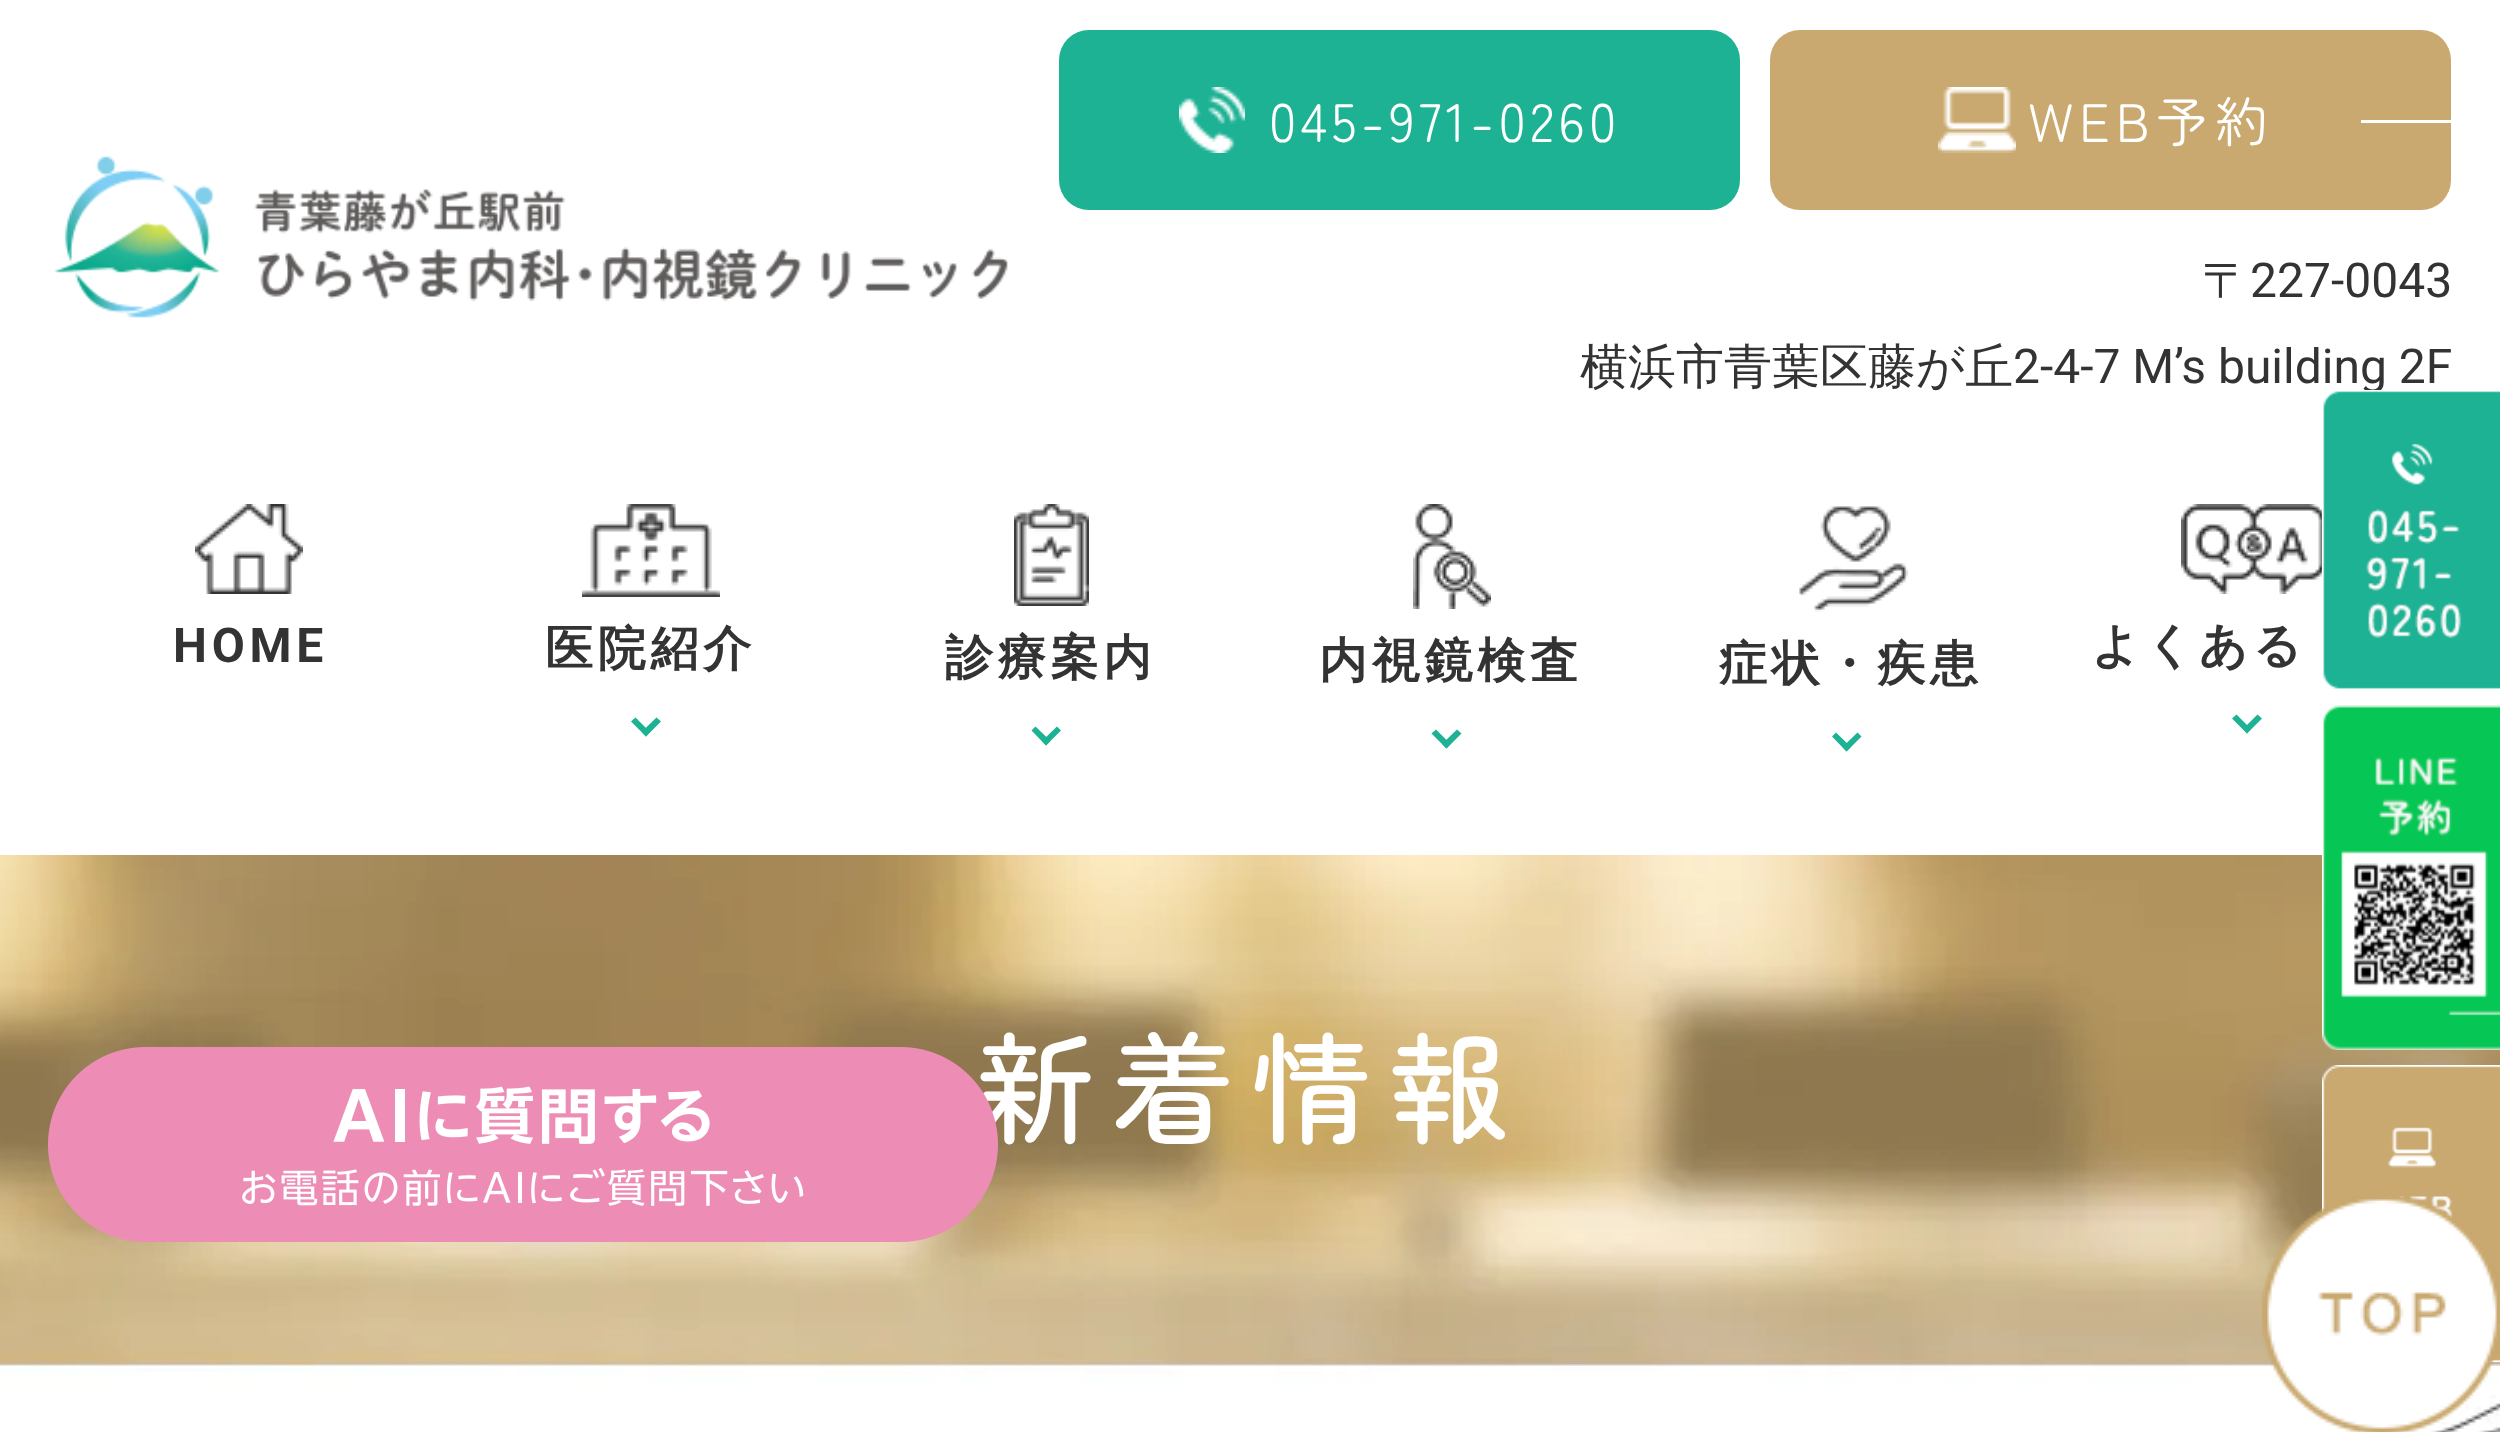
<svg xmlns="http://www.w3.org/2000/svg" width="2500" height="1432" viewBox="0 0 2500 1432">
  <style>
    .t1 { font: 54px Zen Maru Gothic; letter-spacing: 4.25px; fill: #fff; }
    .t2 { font: 54px Zen Maru Gothic; letter-spacing: 5.5px; fill: #fff; }
    .t3 { font: 500 48px WenQuanYi Zen Hei; fill: #333; }
    .t4 { font: 48px Roboto; fill: #333; }
    .t5 { font: bold 48px Roboto; letter-spacing: 4.75px; fill: #333; }
    .t6 { font: bold 48px WenQuanYi Zen Hei; letter-spacing: 4.75px; fill: #333; }
    .t7 { font: 500 120px Zen Maru Gothic; letter-spacing: 18px; fill: #fff; }
  </style>
  <rect width="100%" height="100%" fill="#fff"/>
  <image x="54" y="156" width="954" height="162" href="images/1.png"/>
  <rect x="1059" y="30" width="681" height="180" rx="30" fill="#1db294"/>
  <image x="1179" y="87" width="66" height="66" href="images/2.png"/>
  <text x="1269" y="142" class="t1">045-971-0260</text>
  <rect x="1770" y="30" width="681" height="180" rx="30" fill="#c9a96f"/>
  <image x="1938" y="87" width="78" height="66" href="images/3.png"/>
  <text x="2028" y="142" class="t2">WEB予約</text>
  <rect x="2361" y="120" width="90" height="3" fill="#fff"/>
  <text x="2202" y="297" class="t3">〒</text>
  <text x="2250" y="297" class="t4">227-0043</text>
  <text x="1580" y="383" class="t3">横浜市青葉区藤が丘</text>
  <text x="2013" y="383" class="t4">2-4-7 M’s building 2F</text>
  <image x="195" y="504" width="108" height="90" href="images/4.png"/>
  <text x="173" y="662" class="t5">HOME</text>
  <image x="582" y="504" width="138" height="93" href="images/5.png"/>
  <text x="545" y="665" class="t6">医院紹介</text>
  <path d="M661 721.5L646 736.5L641.5 732L656.5 717.5Z" fill="#1db294"/>
  <path d="M650 732L646 736.5L631 721.5L635.5 717.5Z" fill="#1db294"/>
  <image x="1014" y="504" width="75" height="102" href="images/6.png"/>
  <text x="945" y="674" class="t6">診療案内</text>
  <path d="M1061 730.5L1046 745.5L1042 741L1057 726.5Z" fill="#1db294"/>
  <path d="M1050.5 741L1046 745.5L1031.5 730.5L1035.5 726.5Z" fill="#1db294"/>
  <image x="1413" y="504" width="78" height="105" href="images/7.png"/>
  <text x="1319" y="677" class="t6">内視鏡検査</text>
  <path d="M1461.5 733.5L1446.5 748.5L1442 744L1457 729.5Z" fill="#1db294"/>
  <path d="M1450.5 744L1446.5 748.5L1431.5 733.5L1436 729.5Z" fill="#1db294"/>
  <image x="1799" y="506" width="109" height="106" href="images/8.png"/>
  <text x="1719" y="680" class="t6">症状・疾患</text>
  <path d="M1861.5 736.5L1846.5 751.5L1842.5 747L1857.5 732.5Z" fill="#1db294"/>
  <path d="M1851 747L1846.5 751.5L1832 736.5L1836 732.5Z" fill="#1db294"/>
  <image x="2181" y="504" width="141" height="90" href="images/9.png"/>
  <text x="2091" y="662" class="t6">よくある</text>
  <path d="M2262 718.5L2247 733.5L2243 729L2257.5 714.5Z" fill="#1db294"/>
  <path d="M2251 729L2247 733.5L2232 718.5L2236.5 714.5Z" fill="#1db294"/>
  <image x="2322" y="390" width="178" height="299" href="images/10.png"/>
  <image x="0" y="855" width="2500" height="577" href="images/15.png"/>
  <image x="2322" y="705" width="178" height="345" href="images/11.png"/>
  <image x="2322" y="1065" width="178" height="297" href="images/12.png"/>
  <image x="2262" y="1196" width="238" height="236" href="images/13.png"/>
  <text x="975" y="1134" class="t7">新着情報</text>
  <image x="48" y="1047" width="950" height="195" href="images/14.png"/>
</svg>
